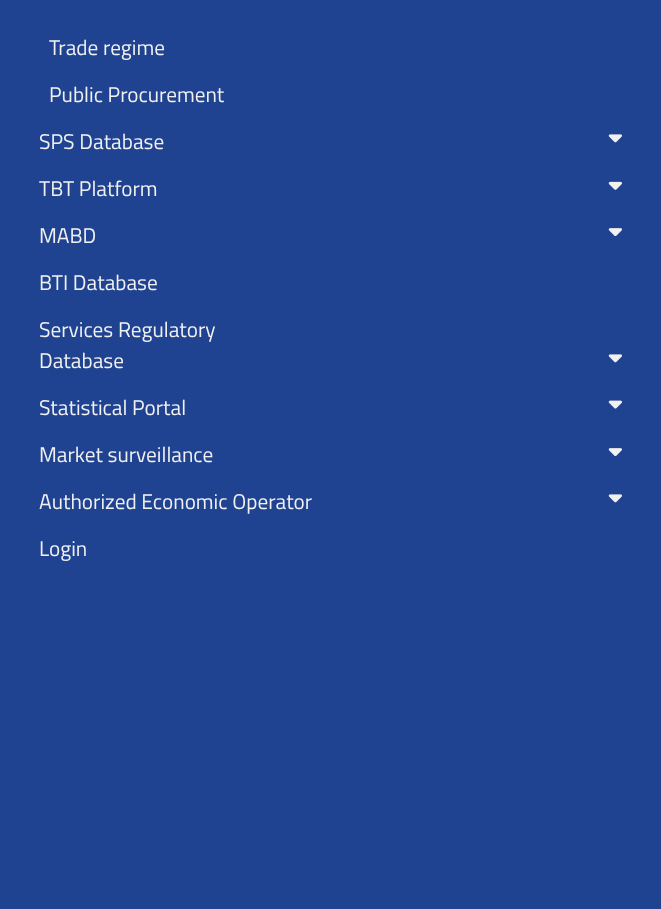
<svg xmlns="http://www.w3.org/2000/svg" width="661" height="909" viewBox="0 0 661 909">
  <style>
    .t1 { font: 21.25px Titillium Web; fill: #f1f1f1; }
  </style>
  <rect width="100%" height="100%" fill="#204391"/>
  <text x="49" y="55" class="t1">Trade regime</text>
  <text x="49" y="102" class="t1">Public Procurement</text>
  <text x="39" y="149" class="t1">SPS Database</text>
  <image x="608" y="134" width="14" height="9" href="images/1.png"/>
  <text x="39" y="196" class="t1">TBT Platform</text>
  <image x="608" y="181" width="14" height="9" href="images/2.png"/>
  <text x="39" y="243" class="t1">MABD</text>
  <image x="608" y="228" width="14" height="9" href="images/3.png"/>
  <text x="39" y="290" class="t1">BTI Database</text>
  <text x="39" y="337" class="t1">Services Regulatory</text>
  <text x="39" y="368" class="t1">Database</text>
  <image x="608" y="354" width="14" height="9" href="images/1.png"/>
  <text x="39" y="415" class="t1">Statistical Portal</text>
  <image x="608" y="400" width="14" height="9" href="images/4.png"/>
  <text x="39" y="462" class="t1">Market surveillance</text>
  <image x="608" y="448" width="14" height="9" href="images/3.png"/>
  <text x="39" y="509" class="t1">Authorized Economic Operator</text>
  <image x="608" y="494" width="14" height="9" href="images/1.png"/>
  <text x="39" y="556" class="t1">Login</text>
</svg>
